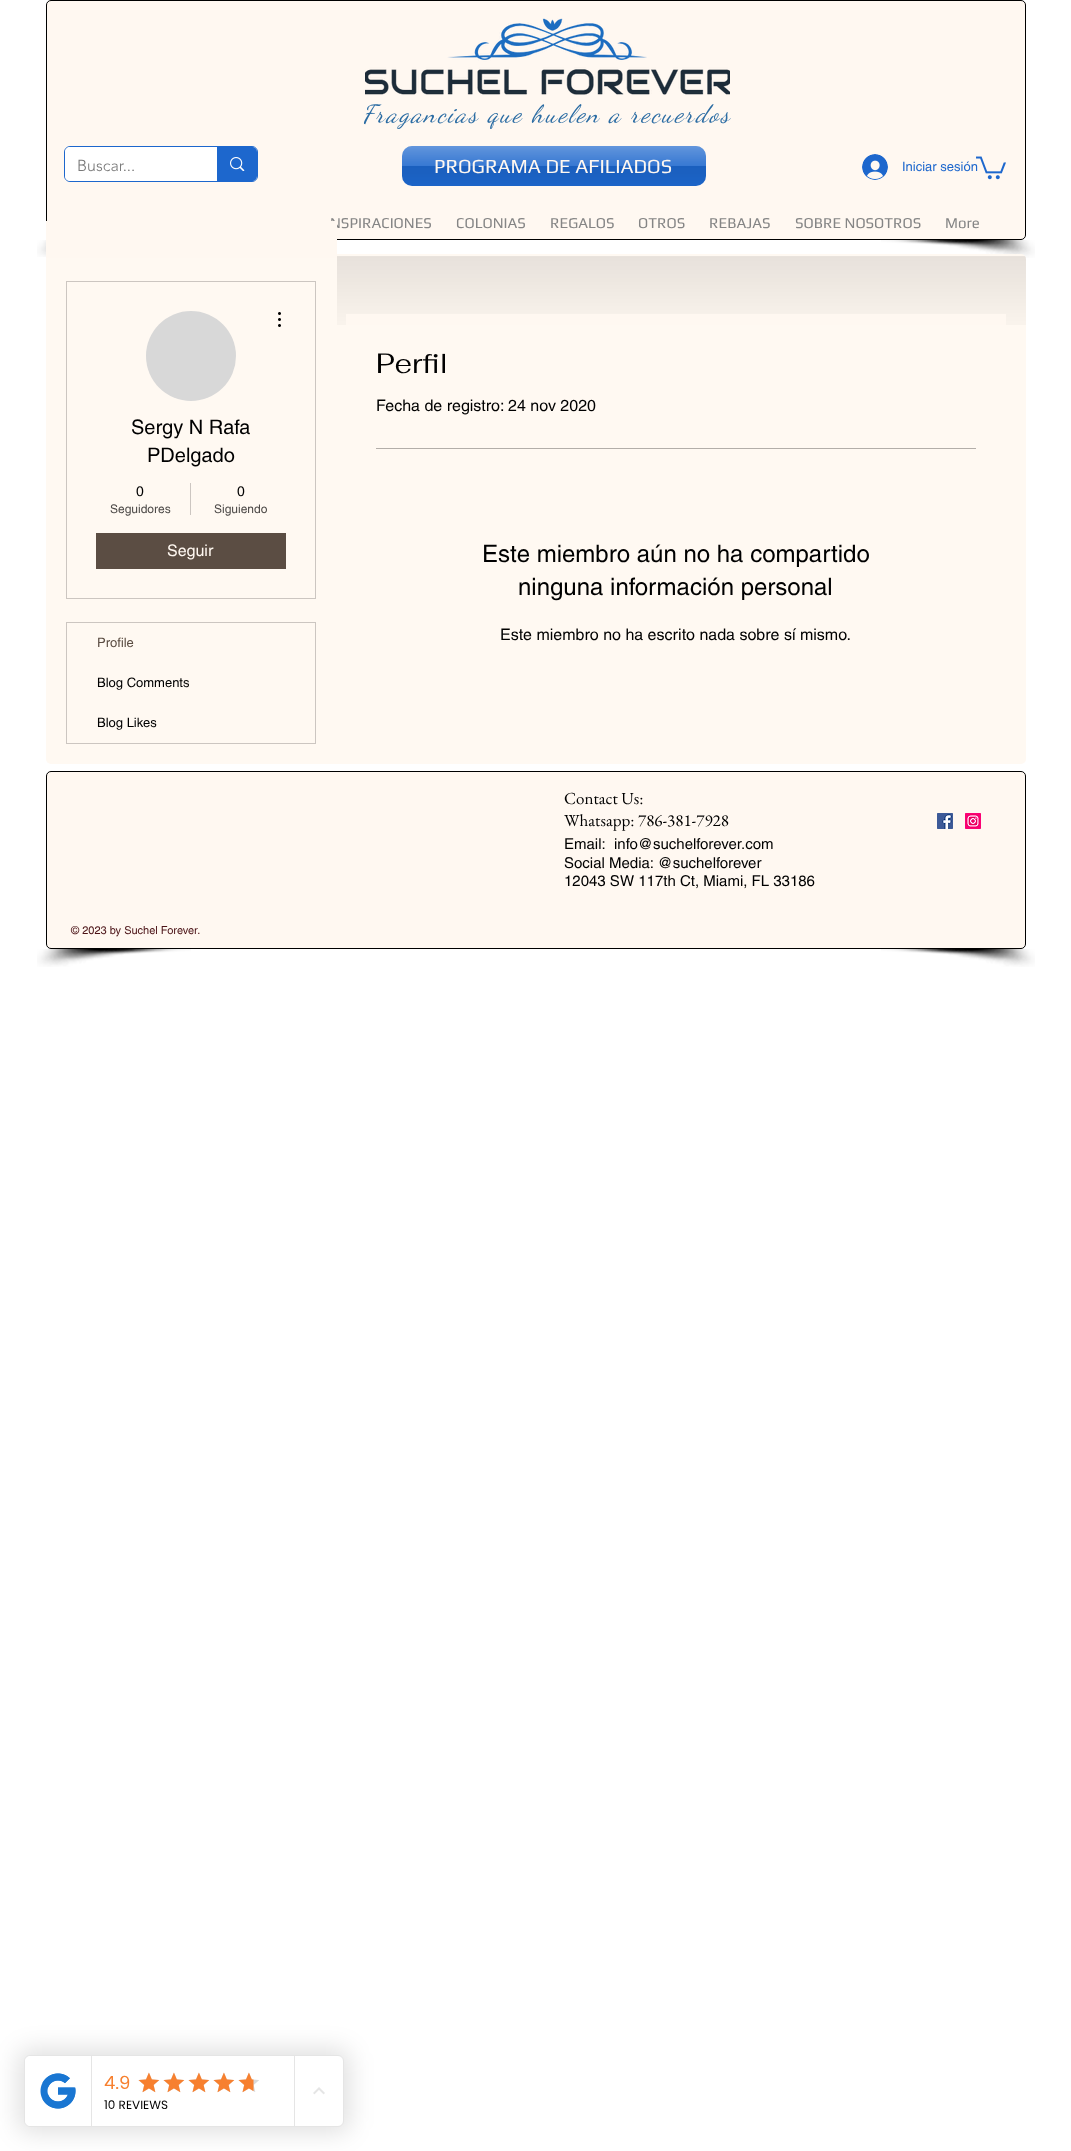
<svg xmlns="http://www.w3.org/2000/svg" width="1071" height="2151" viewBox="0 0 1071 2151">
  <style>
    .t1 { font: italic 25px Dancing Script; letter-spacing: 2px; fill: #2b6ca3; }
    .t2 { font: 300 16px 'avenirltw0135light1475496'; fill: #787878; }
    .t3 { font: 20px Play; fill: #fff8f1; }
    .t4 { font: 13px helvetica; fill: #1d67cd; }
    .t5 { font: 15px Play; fill: #858585; }
    .t6 { font: 20px helvetica; fill: #000; }
    .t7 { font: 14px helvetica; fill: #000; }
    .t8 { font: 12px helvetica; fill: #4d4a48; }
    .t9 { font: 16px helvetica; fill: #fff8f1; }
    .t10 { font: 13px helvetica; fill: #5b4d43; }
    .t11 { font: 13px helvetica; fill: #000; }
    .t12 { font: 28px Fahkwang; fill: #000; }
    .t13 { font: 16px helvetica; fill: #000; }
    .t14 { font: 24px helvetica; fill: #000; }
    .t15 { font: 17px EB Garamond; fill: #000; }
    .t16 { font: 15px helvetica; fill: #000; }
    .t17 { font: 11px helvetica; fill: #4b1317; }
    .t18 { font: 18px Poppins; fill: #f7802f; }
    .t19 { font: 12px Poppins; fill: #000; }
  </style>
  <rect width="100%" height="100%" fill="#fff"/>
  <rect x="46.5" y="0.5" width="979" height="239" rx="4.5" fill="#fff8f1" stroke="#000"/>
  <image x="365" y="18" width="365" height="77" href="images/1.png"/>
  <text x="362" y="122" class="t1">Fragancias que huelen a recuerdos</text>
  <rect x="64.5" y="146.5" width="193" height="35" rx="5.5" fill="none" stroke="#1d67cd"/>
  <rect x="65" y="147" width="192" height="34" rx="5" fill="#fff"/>
  <text x="77" y="171" class="t2">Buscar...</text>
  <path d="M217 147H252C255 147 257 149 257 152V176C257 179 255 181 252 181H217Z" fill="#1d67cd"/>
  <image x="230" y="157" width="15" height="14" href="images/2.png"/>
  <rect x="402" y="146" width="304" height="40" rx="10" fill="#1d67cd"/>
  <image x="402" y="146" width="304" height="40" href="images/3.png"/>
  <text x="434" y="173" class="t3">PROGRAMA DE AFILIADOS</text>
  <image x="862" y="154" width="26" height="26" href="images/4.png"/>
  <text x="902" y="171" class="t4">Iniciar sesión</text>
  <image x="976" y="156" width="30" height="24" href="images/5.png"/>
  <text x="330" y="228" class="t5">NSPIRACIONES</text>
  <text x="456" y="228" class="t5">COLONIAS</text>
  <text x="550" y="228" class="t5">REGALOS</text>
  <text x="638" y="228" class="t5">OTROS</text>
  <text x="709" y="228" class="t5">REBAJAS</text>
  <text x="795" y="228" class="t5">SOBRE NOSOTROS</text>
  <text x="945" y="228" class="t5">More</text>
  <image x="37" y="240" width="9" height="17" href="images/6.png"/>
  <image x="881" y="240" width="154" height="18" href="images/7.png"/>
  <rect x="46" y="254" width="980" height="510" rx="5" fill="#fff8f1e6"/>
  <rect x="46" y="221" width="291" height="37" fill="#fff8f1"/>
  <rect x="66.5" y="281.5" width="249" height="317" fill="none" stroke="#ccc6c1"/>
  <circle cx="191" cy="356" r="45" fill="#d8d8d8"/>
  <image x="278" y="312" width="3" height="15" href="images/8.png"/>
  <text x="131" y="434" class="t6">Sergy N Rafa</text>
  <text x="147" y="462" class="t6">PDelgado</text>
  <text x="136" y="496" class="t7">0</text>
  <text x="110" y="513" class="t8">Seguidores</text>
  <rect x="190" y="483" width="1" height="32" fill="#ccc6c1"/>
  <text x="237" y="496" class="t7">0</text>
  <text x="214" y="513" class="t8">Siguiendo</text>
  <rect x="96" y="533" width="190" height="36" fill="#5b4d43"/>
  <text x="167" y="556" class="t9">Seguir</text>
  <rect x="66.5" y="622.5" width="249" height="121" fill="none" stroke="#ccc6c1"/>
  <text x="97" y="647" class="t10">Profile</text>
  <text x="97" y="687" class="t11">Blog Comments</text>
  <text x="97" y="727" class="t11">Blog Likes</text>
  <image x="337" y="256" width="689" height="69" href="images/9.png"/>
  <rect x="346" y="314" width="660" height="11" fill="#fff8f1"/>
  <text x="376" y="373" class="t12">Perfil</text>
  <text x="376" y="411" class="t13">Fecha de registro: 24 nov 2020</text>
  <rect x="376" y="448" width="600" height="1" fill="#b3aea9"/>
  <text x="482" y="562" class="t14">Este miembro aún no ha compartido</text>
  <text x="518" y="595" class="t14">ninguna información personal</text>
  <text x="500" y="640" class="t13">Este miembro no ha escrito nada sobre sí mismo.</text>
  <rect x="46.5" y="771.5" width="979" height="177" rx="4.5" fill="#fff8f1" stroke="#000"/>
  <text x="564" y="804" class="t15">Contact Us:</text>
  <text x="564" y="826" class="t15">Whatsapp: 786-381-7928</text>
  <text x="564" y="849" class="t16">Email:</text>
  <text x="614" y="849" class="t16">info@suchelforever.com</text>
  <text x="564" y="868" class="t16">Social Media: @suchelforever</text>
  <text x="564" y="886" class="t16">12043 SW 117th Ct, Miami, FL 33186</text>
  <image x="937" y="813" width="16" height="16" href="images/10.png"/>
  <image x="965" y="813" width="16" height="16" href="images/11.png"/>
  <text x="71" y="934" class="t17">© 2023 by Suchel Forever.</text>
  <image x="37" y="949" width="154" height="18" href="images/12.png"/>
  <image x="881" y="949" width="154" height="18" href="images/7.png"/>
  <rect x="18" y="2049" width="332" height="84" rx="12" fill="#0000001f" filter="blur(12px)"/>
  <rect x="24.5" y="2055.5" width="319" height="71" rx="5.5" fill="#fff" stroke="#e5e5e5"/>
  <path d="M31 2056H92V2126H31C27.5 2126 25 2123.5 25 2120V2062C25 2058.5 27.5 2056 31 2056Z" fill="#fff"/>
  <rect x="91" y="2056" width="1" height="70" fill="#e5e5e5"/>
  <image x="40" y="2073" width="36" height="36" href="images/13.png"/>
  <rect x="294" y="2056" width="1" height="70" fill="#e5e5e5"/>
  <text x="104" y="2089" class="t18">4.9</text>
  <image x="138" y="2073" width="21" height="19" href="images/15.png"/>
  <image x="138" y="2072" width="22" height="21" href="images/14.png"/>
  <image x="163" y="2073" width="21" height="19" href="images/15.png"/>
  <image x="163" y="2072" width="22" height="21" href="images/14.png"/>
  <image x="188" y="2073" width="21" height="19" href="images/15.png"/>
  <image x="188" y="2072" width="22" height="21" href="images/14.png"/>
  <image x="213" y="2073" width="21" height="19" href="images/15.png"/>
  <image x="213" y="2072" width="22" height="21" href="images/14.png"/>
  <image x="238" y="2073" width="21" height="19" href="images/15.png"/>
  <image x="238" y="2072" width="16" height="21" href="images/16.png"/>
  <text x="104" y="2109" class="t19">10 REVIEWS</text>
  <image x="313" y="2087" width="12" height="8" href="images/17.png"/>
</svg>
